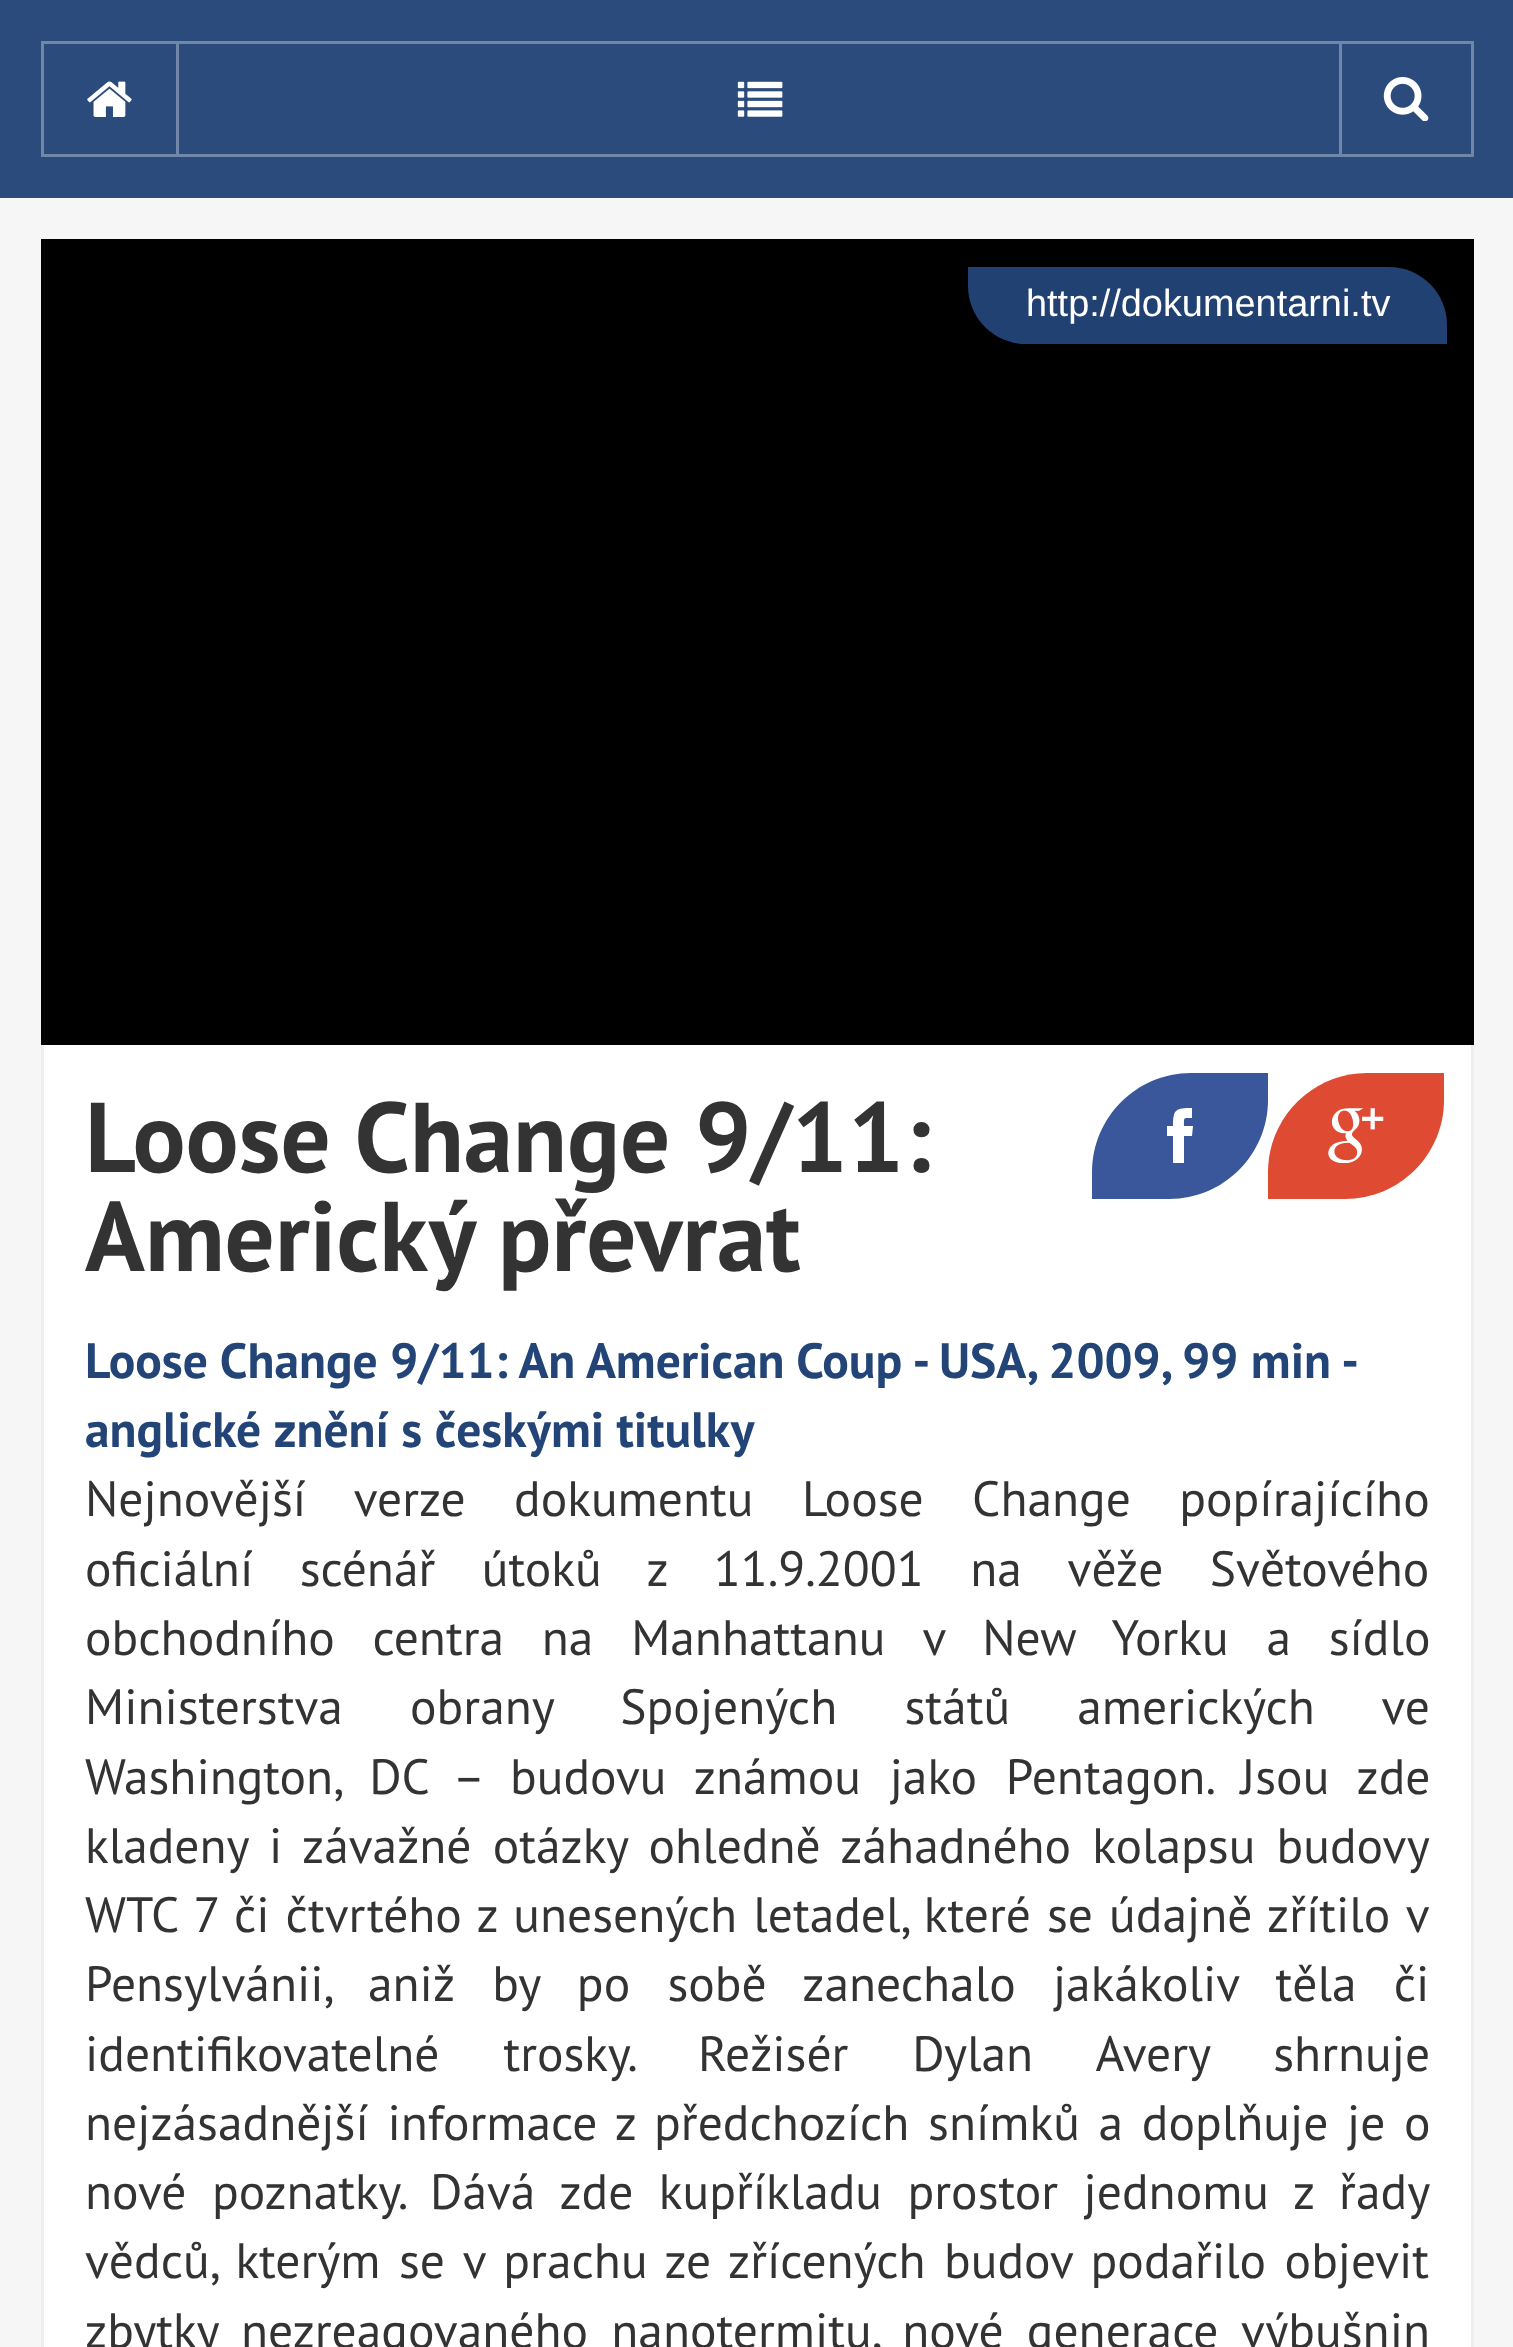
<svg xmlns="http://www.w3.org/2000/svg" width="1513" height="2347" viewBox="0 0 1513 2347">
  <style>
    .t1 { font: 37.9px Liberation Sans; fill: #fff; }
    .t2 { font: bold 99px PT Sans; fill: #333; }
    .t3 { font: bold 49.5px PT Sans; fill: #247; }
    .t4 { font: 49.5px PT Sans; fill: #333; }
  </style>
  <rect width="100%" height="100%" fill="#2a4b7c"/>
  <rect x="41" y="41" width="1298" height="3" fill="#7187a8"/>
  <rect x="41" y="154" width="1298" height="3" fill="#7187a8"/>
  <rect x="41" y="44" width="3" height="110" fill="#7187a8"/>
  <image x="87" y="81" width="45" height="36" href="images/1.png"/>
  <path d="M1339 41H1474L1471 44H1339Z" fill="#7187a8"/>
  <path d="M1474 41V157L1471 154V44Z" fill="#ffffff54"/>
  <path d="M1474 157H1339V154H1471Z" fill="#ffffff54"/>
  <rect x="1339" y="44" width="3" height="110" fill="#7187a8"/>
  <image x="1383" y="77" width="46" height="44" href="images/2.png"/>
  <rect x="176" y="44" width="3" height="110" fill="#7187a8"/>
  <image x="737" y="81" width="46" height="36" href="images/3.png"/>
  <rect x="0" y="198" width="1513" height="2149" fill="#f6f6f6"/>
  <rect x="41" y="239" width="1433" height="806" fill="#000"/>
  <path d="M968 267H1389C1421 267 1447 293 1447 325V344H1026C994 344 968 318 968 286Z" fill="#204171"/>
  <text x="1026" y="316" class="t1">http://dokumentarni.tv</text>
  <rect x="44" y="1045" width="1427" height="1302" fill="#fff"/>
  <rect x="1471" y="1045" width="3" height="1302" fill="#eee"/>
  <rect x="41" y="1045" width="3" height="1302" fill="#eee"/>
  <text x="85" y="1172" class="t2">Loose Change 9/11:</text>
  <text x="85" y="1271" class="t2">Americký převrat</text>
  <path d="M1191 1073H1268V1100C1268 1154.5 1223.5 1199 1169 1199H1092V1172C1092 1117.5 1136.5 1073 1191 1073Z" fill="#39579a"/>
  <path d="M1184 1126C1184 1117 1183 1118 1192 1118V1108C1176 1108 1173 1109 1173 1126H1167V1136H1173V1163H1184V1136H1192L1193 1126Z" fill="#fff"/>
  <path d="M1367 1073H1444V1100C1444 1154.5 1399.5 1199 1345 1199H1268V1172C1268 1117.5 1312.5 1073 1367 1073Z" fill="#df4a32"/>
  <image x="1328" y="1108" width="56" height="55" href="images/4.png"/>
  <text x="85" y="1378" class="t3">Loose Change 9/11: An American Coup - USA, 2009, 99 min -</text>
  <text x="85" y="1447" class="t3">anglické znění s českými titulky</text>
  <text x="85" y="1516" word-spacing="35.25" class="t4">Nejnovější verze dokumentu Loose Change popírajícího</text>
  <text x="85" y="1586" word-spacing="33.25" class="t4">oficiální scénář útoků z 11.9.2001 na věže Světového</text>
  <text x="85" y="1655" word-spacing="24.5" class="t4">obchodního centra na Manhattanu v New Yorku a sídlo</text>
  <text x="85" y="1724" word-spacing="54" class="t4">Ministerstva obrany Spojených států amerických ve</text>
  <text x="85" y="1794" word-spacing="15.5" class="t4">Washington, DC – budovu známou jako Pentagon. Jsou zde</text>
  <text x="85" y="1863" word-spacing="8" class="t4">kladeny i závažné otázky ohledně záhadného kolapsu budovy</text>
  <text x="85" y="1932" word-spacing="2.9" class="t4">WTC 7 či čtvrtého z unesených letadel, které se údajně zřítilo v</text>
  <text x="85" y="2001" word-spacing="24" class="t4">Pensylvánii, aniž by po sobě zanechalo jakákoliv těla či</text>
  <text x="85" y="2071" word-spacing="50.75" class="t4">identifikovatelné trosky. Režisér Dylan Avery shrnuje</text>
  <text x="85" y="2140" word-spacing="5.5" class="t4">nejzásadnější informace z předchozích snímků a doplňuje je o</text>
  <text x="85" y="2209" word-spacing="12.25" class="t4">nové poznatky. Dává zde kupříkladu prostor jednomu z řady</text>
  <text x="85" y="2278" word-spacing="5.25" class="t4">vědců, kterým se v prachu ze zřícených budov podařilo objevit</text>
  <text x="85" y="2348" word-spacing="10" class="t4">zbytky nezreagovaného nanotermitu, nové generace výbušnin</text>
</svg>
